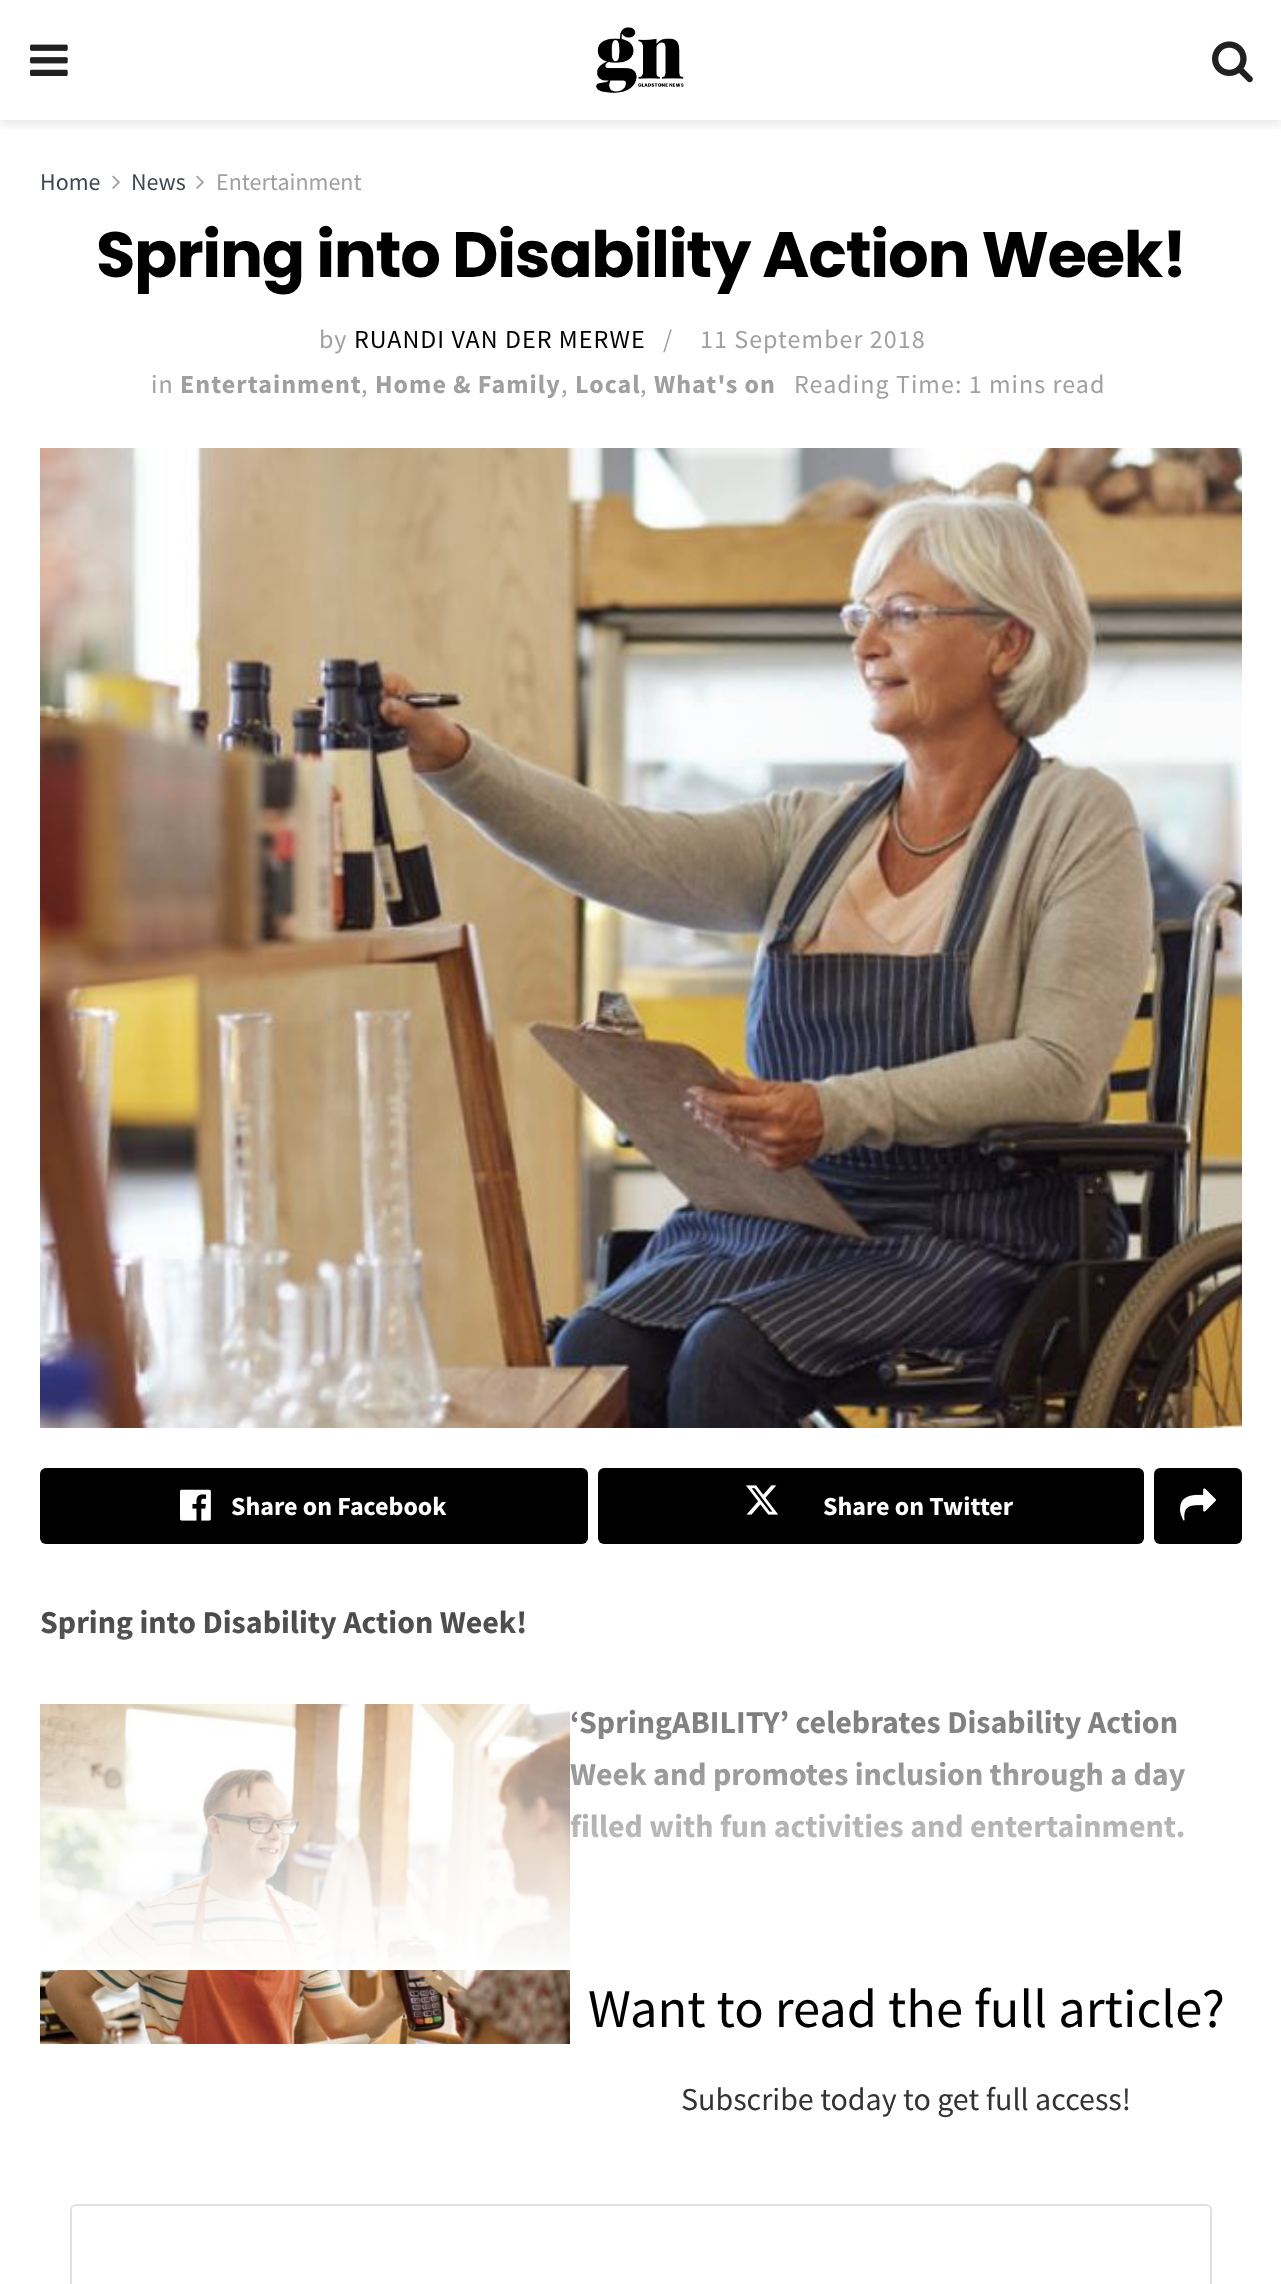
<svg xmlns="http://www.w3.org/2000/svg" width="1281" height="2284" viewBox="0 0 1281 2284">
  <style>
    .t1 { font: 24px Source Sans Pro; fill: #3f4850; }
    .t2 { font: 24px Source Sans Pro; fill: #a0a0a0; }
    .t3 { font: bold 64px Poppins; letter-spacing: -1.3px; fill: #000; }
    .t4 { font: 26px Source Sans Pro; letter-spacing: 1.05px; fill: #a0a0a0; }
    .t5 { font: 26px Source Sans Pro; letter-spacing: 1.05px; fill: #000; }
    .t6 { font: bold 26px Source Sans Pro; letter-spacing: 1.05px; fill: #a0a0a0; }
    .t7 { font: bold 26px Source Sans Pro; fill: #fff; }
    .t8 { font: bold 32px Source Sans Pro; fill: #333; }
    .t9 { font: 54.5px Source Sans Pro; fill: #000; }
    .t10 { font: 32px Source Sans Pro; fill: #333; }
  </style>
  <defs>
    <clipPath id="clip1"><rect x="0" y="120" width="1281" height="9"/></clipPath>
    <linearGradient id="g1" gradientUnits="userSpaceOnUse" x1="641" y1="1570" x2="641" y2="1970"><stop offset="0" stop-color="#fff" stop-opacity="0"/><stop offset="1" stop-color="#fff"/></linearGradient>
  </defs>
  <rect width="100%" height="100%" fill="#fff"/>
  <g clip-path="url(#clip1)">
    <rect x="0" y="4" width="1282" height="120" fill="#0000001a" filter="blur(6px)"/>
  </g>
  <image x="30" y="44" width="38" height="32" href="images/1.png"/>
  <image x="596" y="27" width="88" height="66" href="images/2.png"/>
  <image x="1212" y="41" width="41" height="42" href="images/3.png"/>
  <text x="40" y="190" class="t1">Home</text>
  <image x="112" y="175" width="8" height="14" href="images/4.png"/>
  <text x="131" y="190" class="t1">News</text>
  <image x="196" y="175" width="8" height="14" href="images/4.png"/>
  <text x="216" y="190" class="t2">Entertainment</text>
  <text x="96" y="277" class="t3">Spring into Disability Action Week!</text>
  <text x="319" y="348" class="t4">by</text>
  <text x="354" y="348" class="t5">RUANDI VAN DER MERWE</text>
  <text x="663" y="348" class="t4">/</text>
  <text x="700" y="348" class="t4">11 September 2018</text>
  <text x="151" y="393" class="t4">in</text>
  <text x="180" y="393" class="t6">Entertainment</text>
  <text x="361" y="393" class="t4">,</text>
  <text x="375" y="393" class="t6">Home &amp; Family</text>
  <text x="561" y="393" class="t4">,</text>
  <text x="575" y="393" class="t6">Local</text>
  <text x="640" y="393" class="t4">,</text>
  <text x="654" y="393" class="t6">What's on</text>
  <text x="794" y="393" class="t4">Reading Time: 1 mins read</text>
  <image x="40" y="448" width="1202" height="980" href="images/5.png"/>
  <rect x="40" y="1468" width="548" height="76" rx="6" fill="#000"/>
  <image x="180" y="1489" width="31" height="32" href="images/6.png"/>
  <text x="231" y="1515" class="t7">Share on Facebook</text>
  <rect x="598" y="1468" width="546" height="76" rx="6" fill="#000"/>
  <image x="746" y="1485" width="33" height="30" href="images/7.png"/>
  <text x="823" y="1515" class="t7">Share on Twitter</text>
  <rect x="1154" y="1468" width="88" height="76" rx="6" fill="#000"/>
  <image x="1180" y="1488" width="36" height="33" href="images/8.png"/>
  <text x="40" y="1633" class="t8">Spring into Disability Action Week!</text>
  <image x="40" y="1704" width="530" height="340" href="images/9.png"/>
  <text x="570" y="1733" class="t8">‘SpringABILITY’ celebrates Disability Action</text>
  <text x="570" y="1785" class="t8">Week and promotes inclusion through a day</text>
  <text x="570" y="1837" class="t8">filled with fun activities and entertainment.</text>
  <rect x="40" y="1610" width="1145" height="360" fill="url(#g1)"/>
  <text x="588" y="2027" class="t9">Want to read the full article?</text>
  <text x="681" y="2110" class="t10">Subscribe today to get full access!</text>
  <rect x="71" y="2205" width="1140" height="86" rx="5" fill="none" stroke="#e0e0e0" stroke-width="2"/>
</svg>
